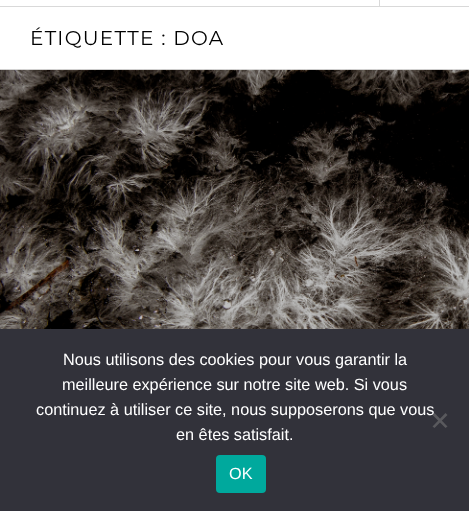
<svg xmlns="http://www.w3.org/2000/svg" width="469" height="511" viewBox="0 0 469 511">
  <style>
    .t1 { font: 20px Montserrat; letter-spacing: 1.25px; fill: #000; }
    .t2 { font: 16.25px Liberation Sans; fill: #fff; }
  </style>
  <rect width="100%" height="100%" fill="#fff"/>
  <rect x="0" y="6" width="469" height="1" fill="#d9d9d9"/>
  <rect x="379" y="0" width="1" height="6" fill="#d9d9d9"/>
  <rect x="0" y="69" width="469" height="1" fill="#d9d9d9"/>
  <text x="30" y="45" class="t1">ÉTIQUETTE : DOA</text>
  <image x="0" y="69" width="469" height="260" href="images/1.png"/>
  <rect x="0" y="329" width="469" height="182" fill="#32323a"/>
  <text x="63" y="365" class="t2">Nous utilisons des cookies pour vous garantir la</text>
  <text x="62" y="390" class="t2">meilleure expérience sur notre site web. Si vous</text>
  <text x="36" y="415" class="t2">continuez à utiliser ce site, nous supposerons que vous</text>
  <text x="176" y="440" class="t2">en êtes satisfait.</text>
  <path d="M445.5 413L447.5 415L434.5 428L432.5 426.5Z" fill="#59595d"/>
  <path d="M432.5 415L434.5 413L447.5 426.5L445.5 428Z" fill="#59595d"/>
  <rect x="216" y="455" width="50" height="38" rx="4" fill="#00a99d"/>
  <text x="229" y="479" class="t2">OK</text>
</svg>
